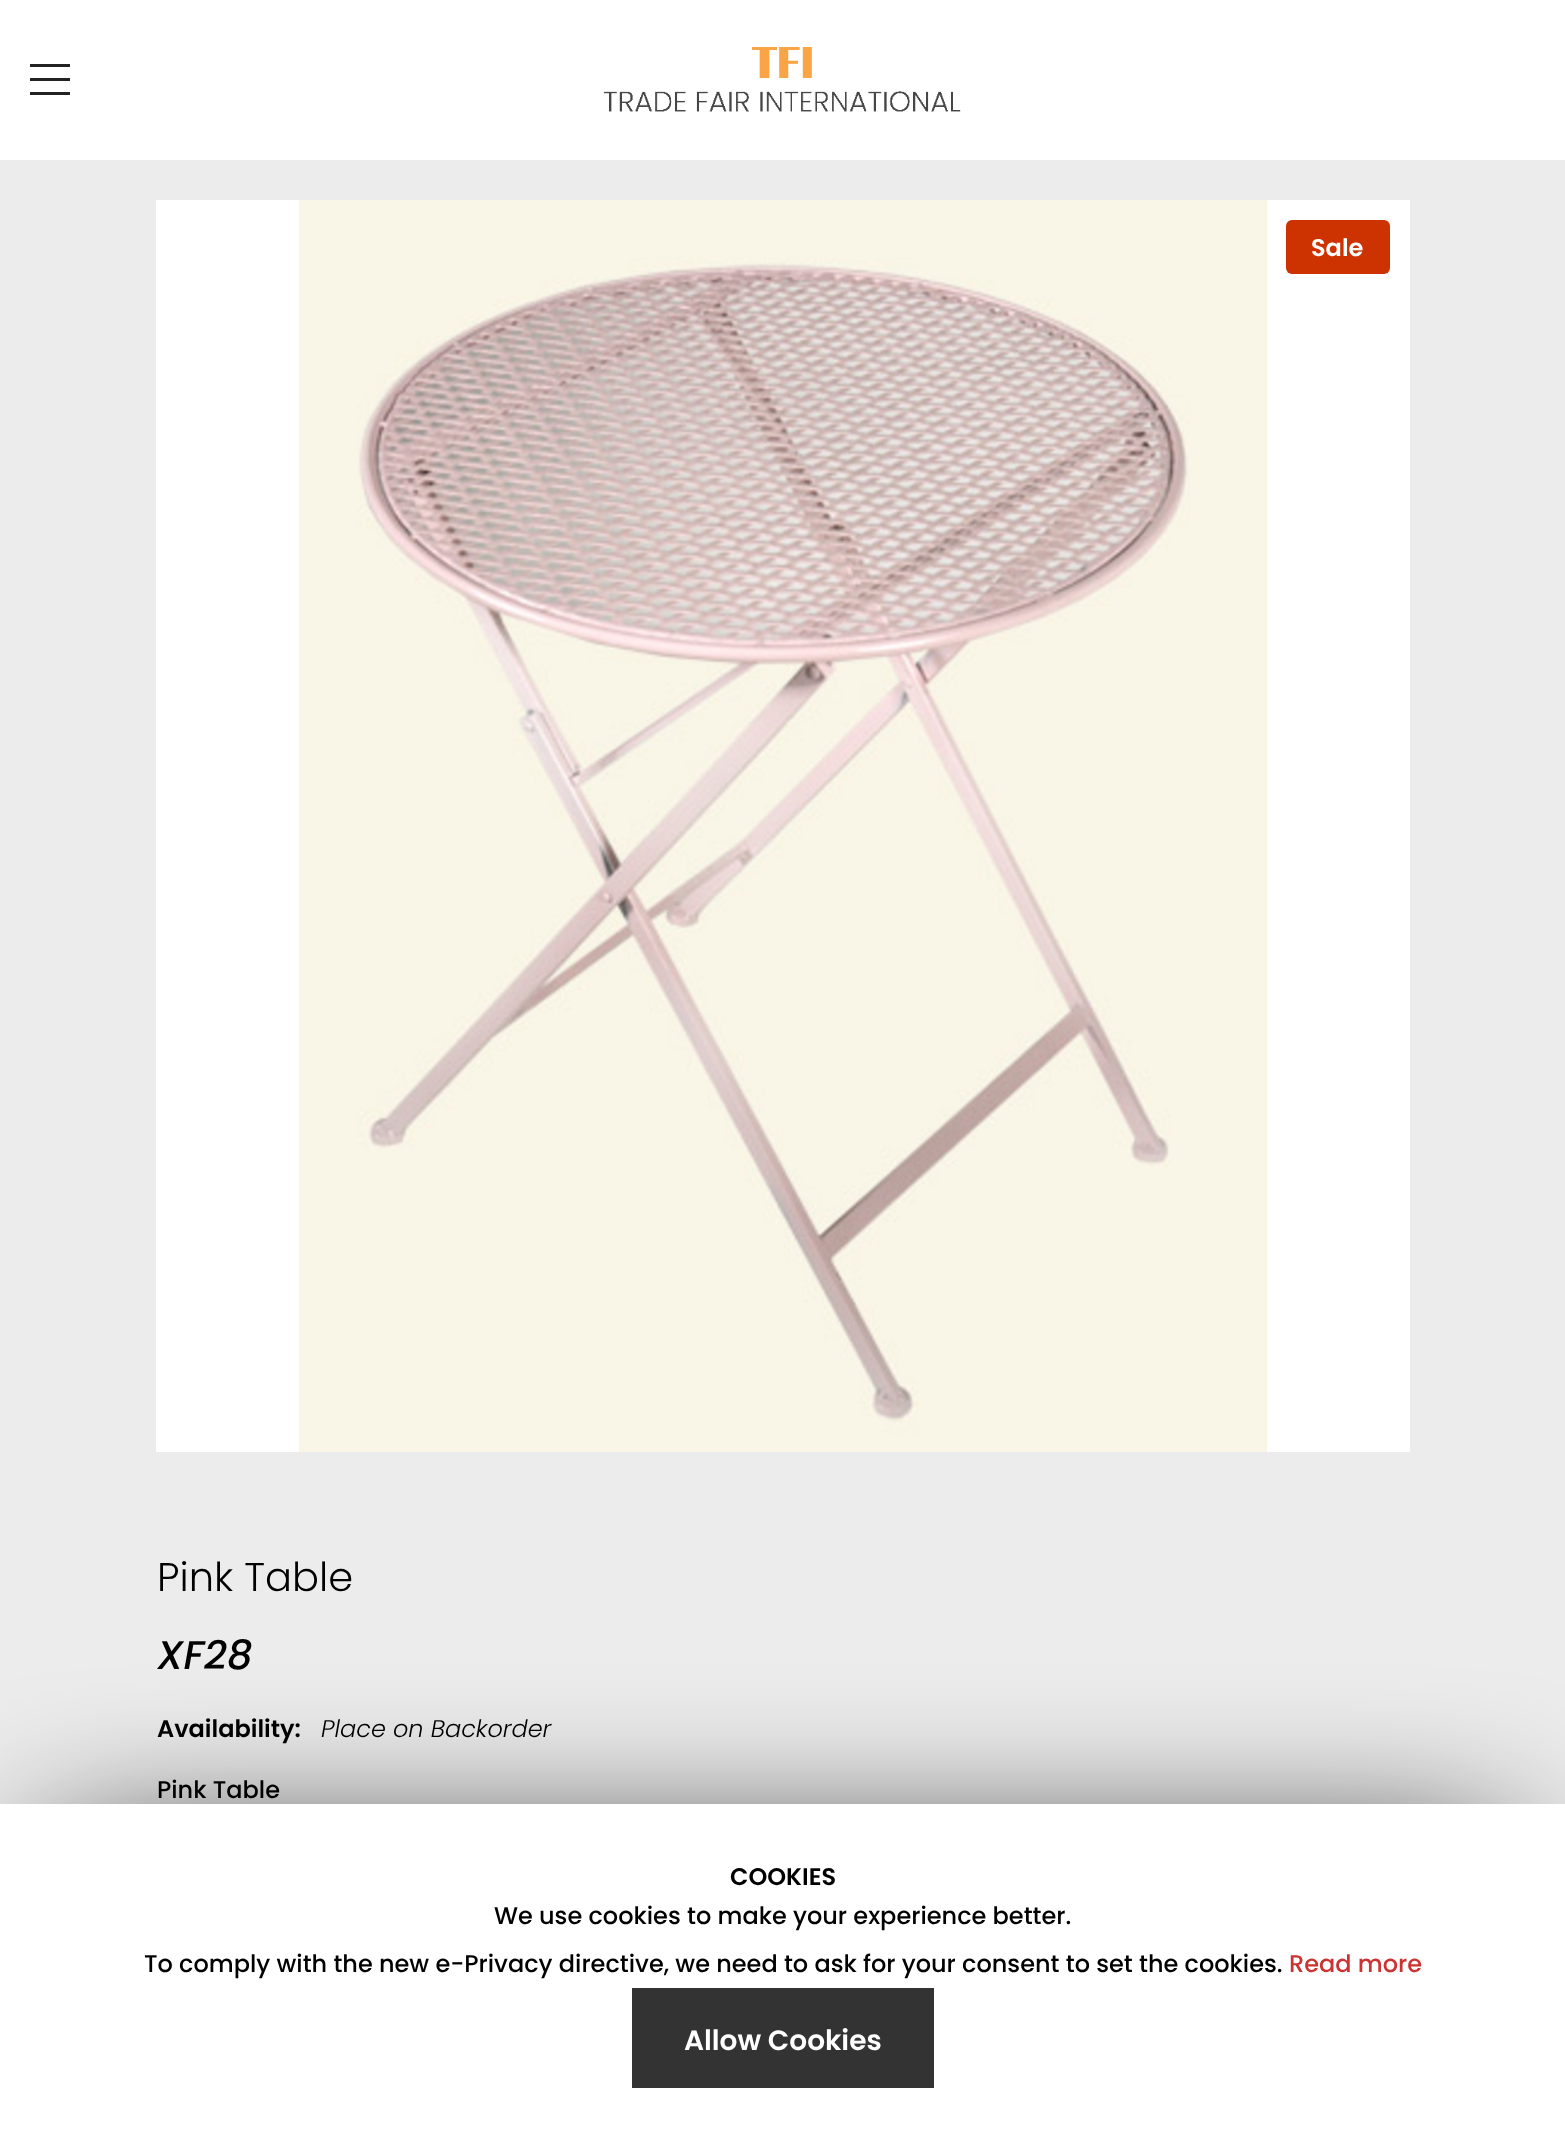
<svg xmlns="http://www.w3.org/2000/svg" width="1565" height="2148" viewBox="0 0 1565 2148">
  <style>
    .t1 { font: 600 24px Poppins; fill: #fff; }
    .t2 { font: 300 40px Poppins; fill: #000; }
    .t3 { font: italic 500 40px Poppins; fill: #000; }
    .t4 { font: 600 24px Poppins; fill: #000; }
    .t5 { font: italic 300 24px Poppins; fill: #000; }
    .t6 { font: 500 24px Poppins; fill: #000; }
    .t7 { font: 500 24px Poppins; fill: #c33; }
    .t8 { font: 600 28px Poppins; fill: #fff; }
  </style>
  <rect width="100%" height="100%" fill="#fff"/>
  <rect x="30" y="64" width="40" height="3" fill="#222"/>
  <rect x="30" y="78" width="40" height="3" fill="#222"/>
  <rect x="30" y="92" width="40" height="3" fill="#222"/>
  <image x="603" y="47" width="358" height="65" href="images/1.png"/>
  <rect x="0" y="160" width="1565" height="1644" fill="#ececec"/>
  <image x="156" y="200" width="1254" height="1252" href="images/2.png"/>
  <rect x="1286" y="220" width="104" height="54" rx="6" fill="#c30"/>
  <text x="1311" y="256" class="t1">Sale</text>
  <text x="157" y="1591" class="t2">Pink Table</text>
  <text x="157" y="1669" class="t3">XF28</text>
  <text x="157" y="1737" class="t4">Availability:</text>
  <text x="321" y="1737" class="t5">Place on Backorder</text>
  <text x="157" y="1798" class="t6">Pink Table</text>
  <rect x="48" y="1860" width="1462" height="240" fill="#000" filter="blur(82px)"/>
  <rect x="0" y="1804" width="1565" height="344" fill="#fff"/>
  <text x="730" y="1885" class="t4">COOKIES</text>
  <text x="494" y="1924" class="t6">We use cookies to make your experience better.</text>
  <text x="144" y="1972" class="t6">To comply with the new e-Privacy directive, we need to ask for your consent to set the cookies.</text>
  <text x="1289" y="1972" class="t7">Read more</text>
  <rect x="632" y="1988" width="302" height="100" fill="#333"/>
  <text x="684" y="2050" class="t8">Allow Cookies</text>
</svg>
